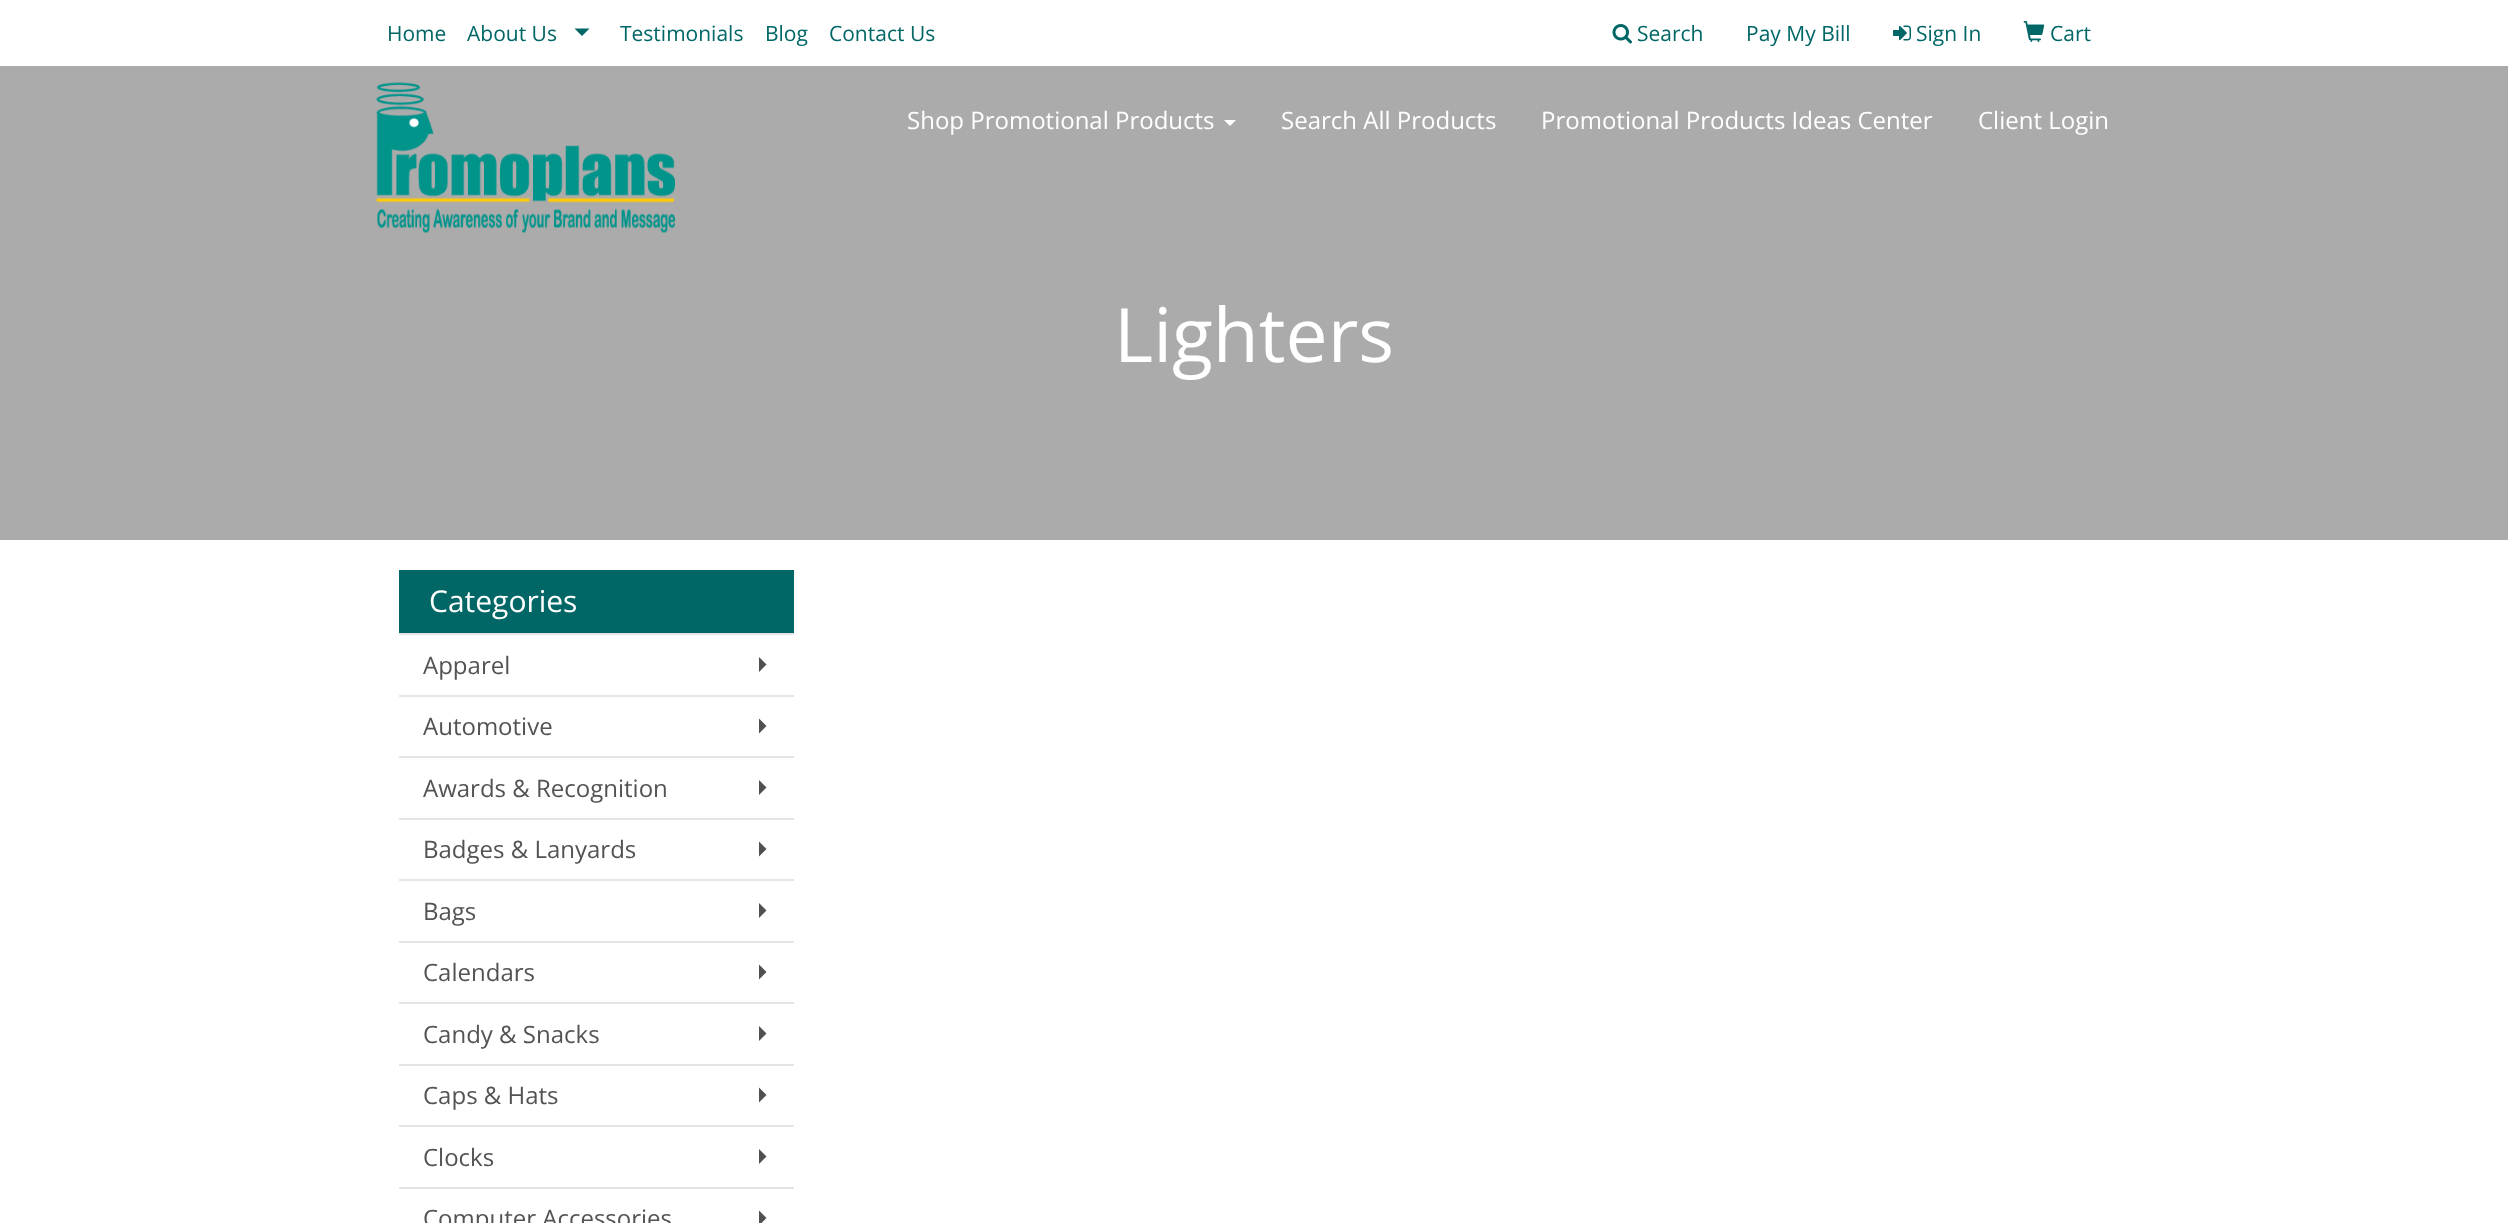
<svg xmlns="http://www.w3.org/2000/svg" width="2508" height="1223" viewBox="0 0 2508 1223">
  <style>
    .t1 { font: 21px Open Sans; fill: #066; }
    .t2 { font: 24px Open Sans; fill: #fff; }
    .t3 { font: 75px Open Sans; fill: #fff; }
    .t4 { font: 30px Open Sans; fill: #fff; }
    .t5 { font: 24px Open Sans; fill: #535353; }
  </style>
  <rect width="100%" height="100%" fill="#ababab"/>
  <rect x="0" y="0" width="2508" height="66" fill="#fff"/>
  <text x="387" y="41" class="t1">Home</text>
  <text x="467" y="41" class="t1">About Us</text>
  <path d="M574.5 28.5H589.5L582 36Z" fill="#066"/>
  <text x="620" y="41" class="t1">Testimonials</text>
  <text x="765" y="41" class="t1">Blog</text>
  <text x="829" y="41" class="t1">Contact Us</text>
  <image x="1612" y="24" width="20" height="20" href="images/1.png"/>
  <text x="1637" y="41" class="t1">Search</text>
  <text x="1746" y="41" class="t1">Pay My Bill</text>
  <image x="1893" y="25" width="18" height="16" href="images/2.png"/>
  <text x="1916" y="41" class="t1">Sign In</text>
  <image x="2023" y="21" width="22" height="21" href="images/3.png"/>
  <text x="2050" y="41" class="t1">Cart</text>
  <image x="376" y="82" width="299" height="151" href="images/4.png"/>
  <text x="907" y="129" class="t2">Shop Promotional Products</text>
  <path d="M1224 120H1236L1230 126Z" fill="#fff"/>
  <text x="1281" y="129" class="t2">Search All Products</text>
  <text x="1541" y="129" class="t2">Promotional Products Ideas Center</text>
  <text x="1978" y="129" class="t2">Client Login</text>
  <text x="1114" y="362" class="t3">Lighters</text>
  <rect x="0" y="540" width="2508" height="683" fill="#fff"/>
  <rect x="399" y="570" width="395" height="63" fill="#066"/>
  <text x="429" y="612" class="t4">Categories</text>
  <rect x="399" y="633" width="395" height="2" fill="#e5e5e5"/>
  <text x="423" y="674" class="t5">Apparel</text>
  <path d="M759 672V657L766.5 664.5Z" fill="#515050"/>
  <rect x="399" y="695" width="395" height="2" fill="#e5e5e5"/>
  <text x="423" y="735" class="t5">Automotive</text>
  <path d="M759 733.5V718.5L766.5 726Z" fill="#515050"/>
  <rect x="399" y="756" width="395" height="2" fill="#e5e5e5"/>
  <text x="423" y="797" class="t5">Awards &amp; Recognition</text>
  <path d="M759 795V780L766.5 787.5Z" fill="#515050"/>
  <rect x="399" y="818" width="395" height="2" fill="#e5e5e5"/>
  <text x="423" y="858" class="t5">Badges &amp; Lanyards</text>
  <path d="M759 856.5V841.5L766.5 849Z" fill="#515050"/>
  <rect x="399" y="879" width="395" height="2" fill="#e5e5e5"/>
  <text x="423" y="920" class="t5">Bags</text>
  <path d="M759 918V903L766.5 910.5Z" fill="#515050"/>
  <rect x="399" y="941" width="395" height="2" fill="#e5e5e5"/>
  <text x="423" y="981" class="t5">Calendars</text>
  <path d="M759 979.5V964.5L766.5 972Z" fill="#515050"/>
  <rect x="399" y="1002" width="395" height="2" fill="#e5e5e5"/>
  <text x="423" y="1043" class="t5">Candy &amp; Snacks</text>
  <path d="M759 1041V1026L766.5 1033.5Z" fill="#515050"/>
  <rect x="399" y="1064" width="395" height="2" fill="#e5e5e5"/>
  <text x="423" y="1104" class="t5">Caps &amp; Hats</text>
  <path d="M759 1102.5V1087.5L766.5 1095Z" fill="#515050"/>
  <rect x="399" y="1125" width="395" height="2" fill="#e5e5e5"/>
  <text x="423" y="1166" class="t5">Clocks</text>
  <path d="M759 1164V1149L766.5 1156.5Z" fill="#515050"/>
  <rect x="399" y="1187" width="395" height="2" fill="#e5e5e5"/>
  <text x="423" y="1227" class="t5">Computer Accessories</text>
  <path d="M759 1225.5V1210.5L766.5 1218Z" fill="#515050"/>
</svg>
